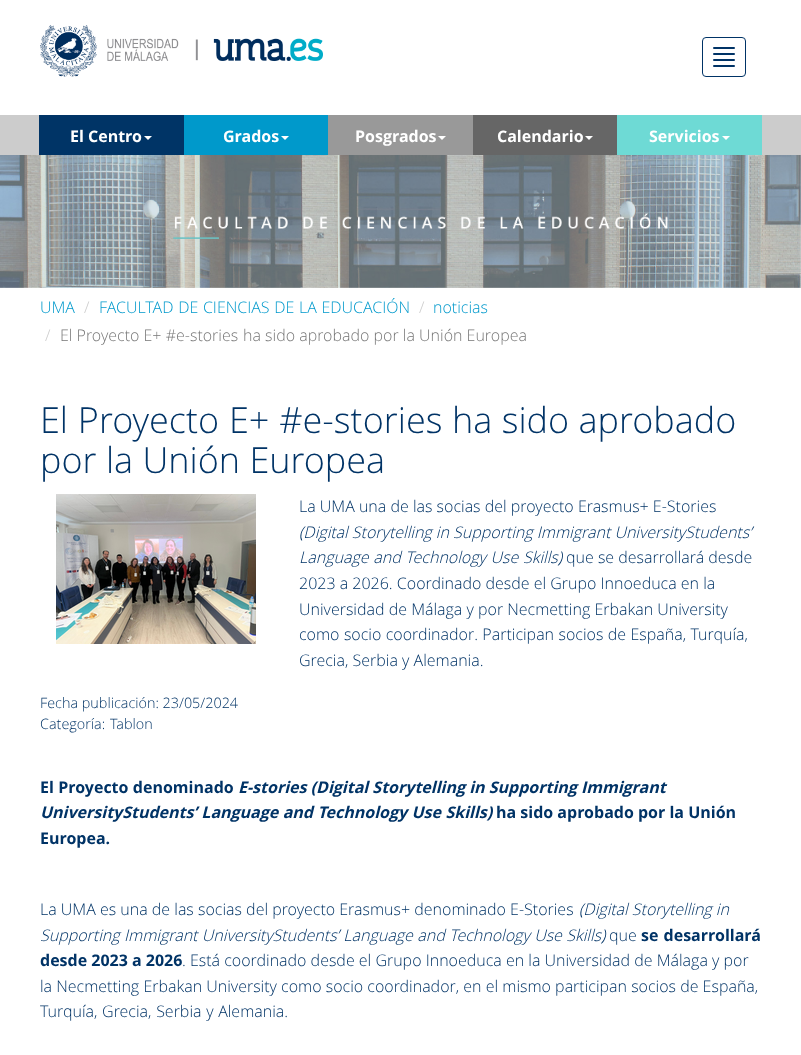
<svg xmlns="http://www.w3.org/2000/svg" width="801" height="1055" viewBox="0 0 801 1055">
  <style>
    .t1 { font: bold 16px Open Sans; fill: #fff; }
    .t2 { font: 300 16px Open Sans; fill: #09c; }
    .t3 { font: 300 16px Open Sans; fill: #ccc; }
    .t4 { font: 300 16px Open Sans; fill: #777; }
    .t5 { font: 300 36px Open Sans; fill: #036; }
    .t6 { font: 300 16px Open Sans; fill: #036; }
    .t7 { font: italic 300 16px Open Sans; fill: #036; }
    .t8 { font: 300 14.4px Open Sans; fill: #036; }
    .t9 { font: bold 16px Open Sans; fill: #036; }
    .t10 { font: italic bold 16px Open Sans; fill: #036; }
  </style>
  <rect width="100%" height="100%" fill="#fff"/>
  <image x="40" y="25" width="283" height="52" href="images/1.png"/>
  <rect x="702.5" y="37.5" width="43" height="39" rx="3.5" fill="none" stroke="#036"/>
  <rect x="713" y="47" width="22" height="2" rx="1" fill="#036"/>
  <rect x="713" y="53" width="22" height="2" rx="1" fill="#036"/>
  <rect x="713" y="59" width="22" height="2" rx="1" fill="#036"/>
  <rect x="713" y="65" width="22" height="2" rx="1" fill="#036"/>
  <rect x="0" y="115" width="801" height="40" fill="#ccc"/>
  <rect x="39" y="115" width="145" height="40" fill="#003466"/>
  <text x="70" y="142" class="t1">El Centro</text>
  <path d="M144 136H152L148 140Z" fill="#fff"/>
  <rect x="184" y="115" width="144" height="40" fill="#0099cb"/>
  <text x="223" y="142" class="t1">Grados</text>
  <path d="M281 136H289L285 140Z" fill="#fff"/>
  <rect x="328" y="115" width="145" height="40" fill="#999"/>
  <text x="355" y="142" class="t1">Posgrados</text>
  <path d="M438 136H446L442 140Z" fill="#fff"/>
  <rect x="473" y="115" width="144" height="40" fill="#666"/>
  <text x="497" y="142" class="t1">Calendario</text>
  <path d="M585 136H593L589 140Z" fill="#fff"/>
  <rect x="617" y="115" width="145" height="40" fill="#6edad5"/>
  <text x="649" y="142" class="t1">Servicios</text>
  <path d="M722 136H730L726 140Z" fill="#fff"/>
  <image x="0" y="155" width="801" height="133" href="images/2.png"/>
  <text x="40" y="313" class="t2">UMA</text>
  <text x="84" y="313" class="t3">/</text>
  <text x="99" y="313" word-spacing="0.5" class="t2">FACULTAD DE CIENCIAS DE LA EDUCACIÓN</text>
  <text x="419" y="313" class="t3">/</text>
  <text x="433" y="313" class="t2">noticias</text>
  <text x="45" y="341" class="t3">/</text>
  <text x="60" y="341" class="t4">El Proyecto E+ #e-stories</text>
  <text x="243" y="341" class="t4">ha sido aprobado por la Unión Europea</text>
  <text x="40" y="433" word-spacing="0.5" class="t5">El Proyecto E+ #e-stories</text>
  <text x="452" y="433" class="t5">ha sido aprobado</text>
  <text x="40" y="473" class="t5">por la Unión Europea</text>
  <image x="56" y="494" width="200" height="150" href="images/3.png"/>
  <text x="299" y="512" class="t6">La UMA una de las socias del proyecto Erasmus+ E-Stories</text>
  <text x="299" y="538" class="t7">(Digital Storytelling in Supporting Immigrant UniversityStudents’</text>
  <text x="299" y="563" word-spacing="0.5" class="t7">Language and Technology Use Skills)</text>
  <text x="566" y="563" class="t6">que se desarrollará desde</text>
  <text x="299" y="589" class="t6">2023 a 2026. Coordinado desde el Grupo Innoeduca en la</text>
  <text x="299" y="615" class="t6">Universidad de Málaga y por Necmetting Erbakan University</text>
  <text x="299" y="640" word-spacing="0.25" class="t6">como socio coordinador. Participan socios de España, Turquía,</text>
  <text x="299" y="666" class="t6">Grecia, Serbia y Alemania.</text>
  <text x="40" y="708" class="t8">Fecha publicación: 23/05/2024</text>
  <text x="40" y="729" word-spacing="1" class="t8">Categoría: Tablon</text>
  <text x="40" y="793" word-spacing="0.25" class="t9">El Proyecto denominado</text>
  <text x="238" y="793" class="t10">E-stories (Digital Storytelling in Supporting Immigrant</text>
  <text x="40" y="818" word-spacing="0.25" class="t10">UniversityStudents’ Language and Technology Use Skills)</text>
  <text x="496" y="818" class="t9">ha sido aprobado por la Unión</text>
  <text x="40" y="844" class="t9">Europea.</text>
  <text x="40" y="915" class="t6">La UMA es una de las socias del proyecto Erasmus+ denominado E-Stories</text>
  <text x="579" y="915" class="t7">(Digital Storytelling in</text>
  <text x="40" y="941" word-spacing="0.25" class="t7">Supporting Immigrant UniversityStudents’ Language and Technology Use Skills)</text>
  <text x="609" y="941" class="t6">que</text>
  <text x="641" y="941" word-spacing="1" class="t9">se desarrollará</text>
  <text x="40" y="966" class="t9">desde 2023 a 2026</text>
  <text x="182" y="966" class="t6">. Está coordinado desde el Grupo Innoeduca en la Universidad de Málaga y por</text>
  <text x="40" y="992" class="t6">la Necmetting Erbakan University como socio coordinador, en el mismo participan socios de España,</text>
  <text x="40" y="1017" word-spacing="0.5" class="t6">Turquía, Grecia, Serbia y Alemania.</text>
</svg>
